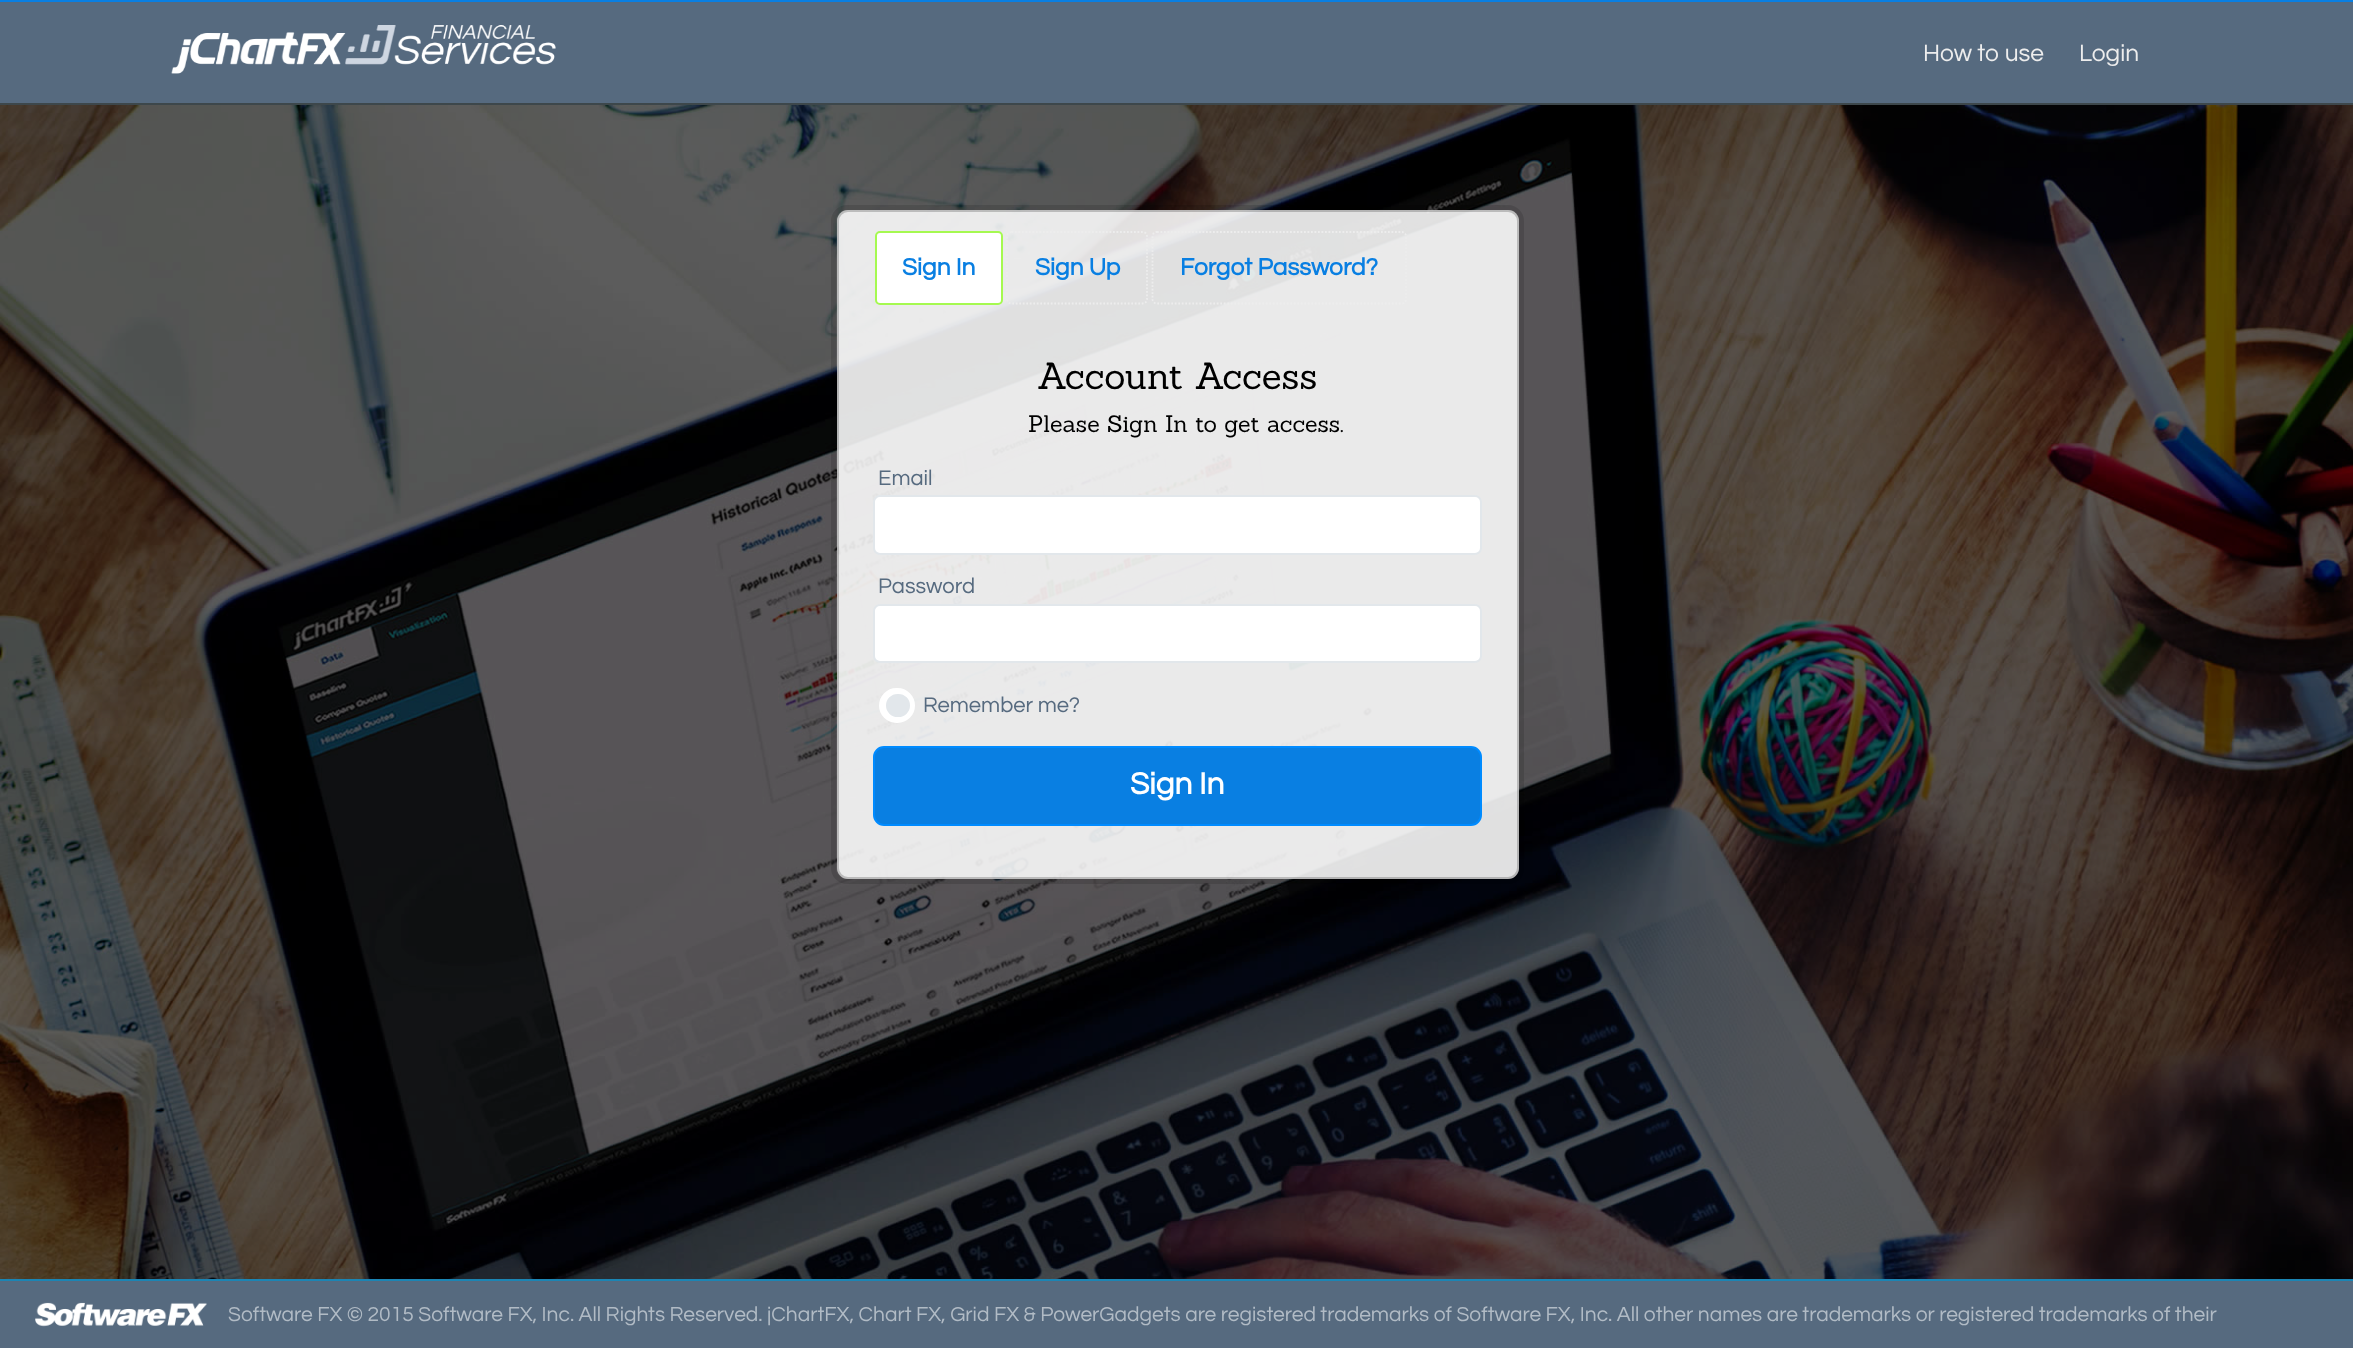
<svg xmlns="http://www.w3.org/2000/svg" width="2353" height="1348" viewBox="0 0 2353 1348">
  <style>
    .t1 { font: 24.5px Questrial; fill: #ededed; }
    .t2 { font: bold 24.5px Questrial; fill: #097fe2; }
    .t3 { font: 36.75px Sanchez; fill: #000; }
    .t4 { font: 23.25px Sanchez; fill: #000; }
    .t5 { font: 22px Questrial; fill: #566a7f; }
    .t6 { font: bold 31.5px Questrial; fill: #fff; }
    .t7 { font: 21px Questrial; fill: #b1bbc5; }
  </style>
  <rect width="100%" height="100%" fill="#fff"/>
  <rect x="0" y="2" width="2353" height="101" fill="#566a7f"/>
  <rect x="0" y="0" width="2353" height="2" fill="#097fe2"/>
  <rect x="0" y="103" width="2353" height="2" fill="#3d474b"/>
  <image x="171" y="25" width="385" height="49" href="images/1.png"/>
  <text x="1923" y="61" class="t1">How to use</text>
  <text x="2079" y="61" class="t1">Login</text>
  <image x="0" y="105" width="2353" height="1174" href="images/2.png"/>
  <rect x="833.5" y="207.5" width="688" height="674" rx="13.5" fill="none" stroke="#0000001f" stroke-width="5"/>
  <rect x="837" y="210" width="682" height="669" rx="11" fill="#ffffffe0"/>
  <rect x="838" y="211" width="680" height="667" rx="10" fill="none" stroke="#00000033" stroke-width="2"/>
  <rect x="876" y="232" width="126" height="72" rx="4" fill="#fff" stroke="#a5f950" stroke-width="2"/>
  <text x="902" y="275" class="t2">Sign In</text>
  <path d="M1011.5 232H1143C1145 232 1147 234 1147 236V299C1147 301.5 1145 303.5 1143 303.5H1011.5C1009 303.5 1007 301.5 1007 299V236C1007 234 1009 232 1011.5 232Z" fill="none" stroke="#ededed" stroke-width="1.8" stroke-dasharray="1.75 1.75"/>
  <text x="1035" y="275" class="t2">Sign Up</text>
  <path d="M1157 232H1402C1404 232 1406 234 1406 236V299C1406 301.5 1404 303.5 1402 303.5H1157C1154.5 303.5 1152.5 301.5 1152.5 299V236C1152.5 234 1154.5 232 1157 232Z" fill="none" stroke="#ededed" stroke-width="1.8" stroke-dasharray="1.75 1.75"/>
  <text x="1180" y="275" class="t2">Forgot Password?</text>
  <text x="1037" y="389" class="t3">Account Access</text>
  <text x="1028" y="432" class="t4">Please Sign In to get access.</text>
  <text x="878" y="485" class="t5">Email</text>
  <rect x="874" y="496" width="607" height="58" rx="6" fill="#fff" stroke="#e2e7eb" stroke-width="2"/>
  <text x="878" y="593" class="t5">Password</text>
  <rect x="874" y="605" width="607" height="57" rx="6" fill="#fff" stroke="#e2e7eb" stroke-width="2"/>
  <rect x="880" y="689" width="34" height="33" rx="16.5" fill="#fff" stroke="#fff" stroke-width="2"/>
  <rect x="884" y="692" width="28" height="27" rx="13.5" fill="#e2e7eb" stroke="#fff" stroke-width="4"/>
  <text x="923" y="712" class="t5">Remember me?</text>
  <rect x="874" y="747" width="607" height="78" rx="10" fill="#097fe2" stroke="#008bff" stroke-width="2"/>
  <text x="1130" y="794" class="t6">Sign In</text>
  <rect x="0" y="1281" width="2353" height="67" fill="#566a7f"/>
  <image x="35" y="1302" width="172" height="25" href="images/3.png"/>
  <rect x="0" y="1279" width="2353" height="2" fill="#1b85b4"/>
  <text x="228" y="1321" class="t7">Software FX © 2015 Software FX, Inc. All Rights Reserved. jChartFX, Chart FX, Grid FX &amp; PowerGadgets are registered trademarks of Software FX, Inc. All other names are trademarks or registered trademarks of their</text>
</svg>
